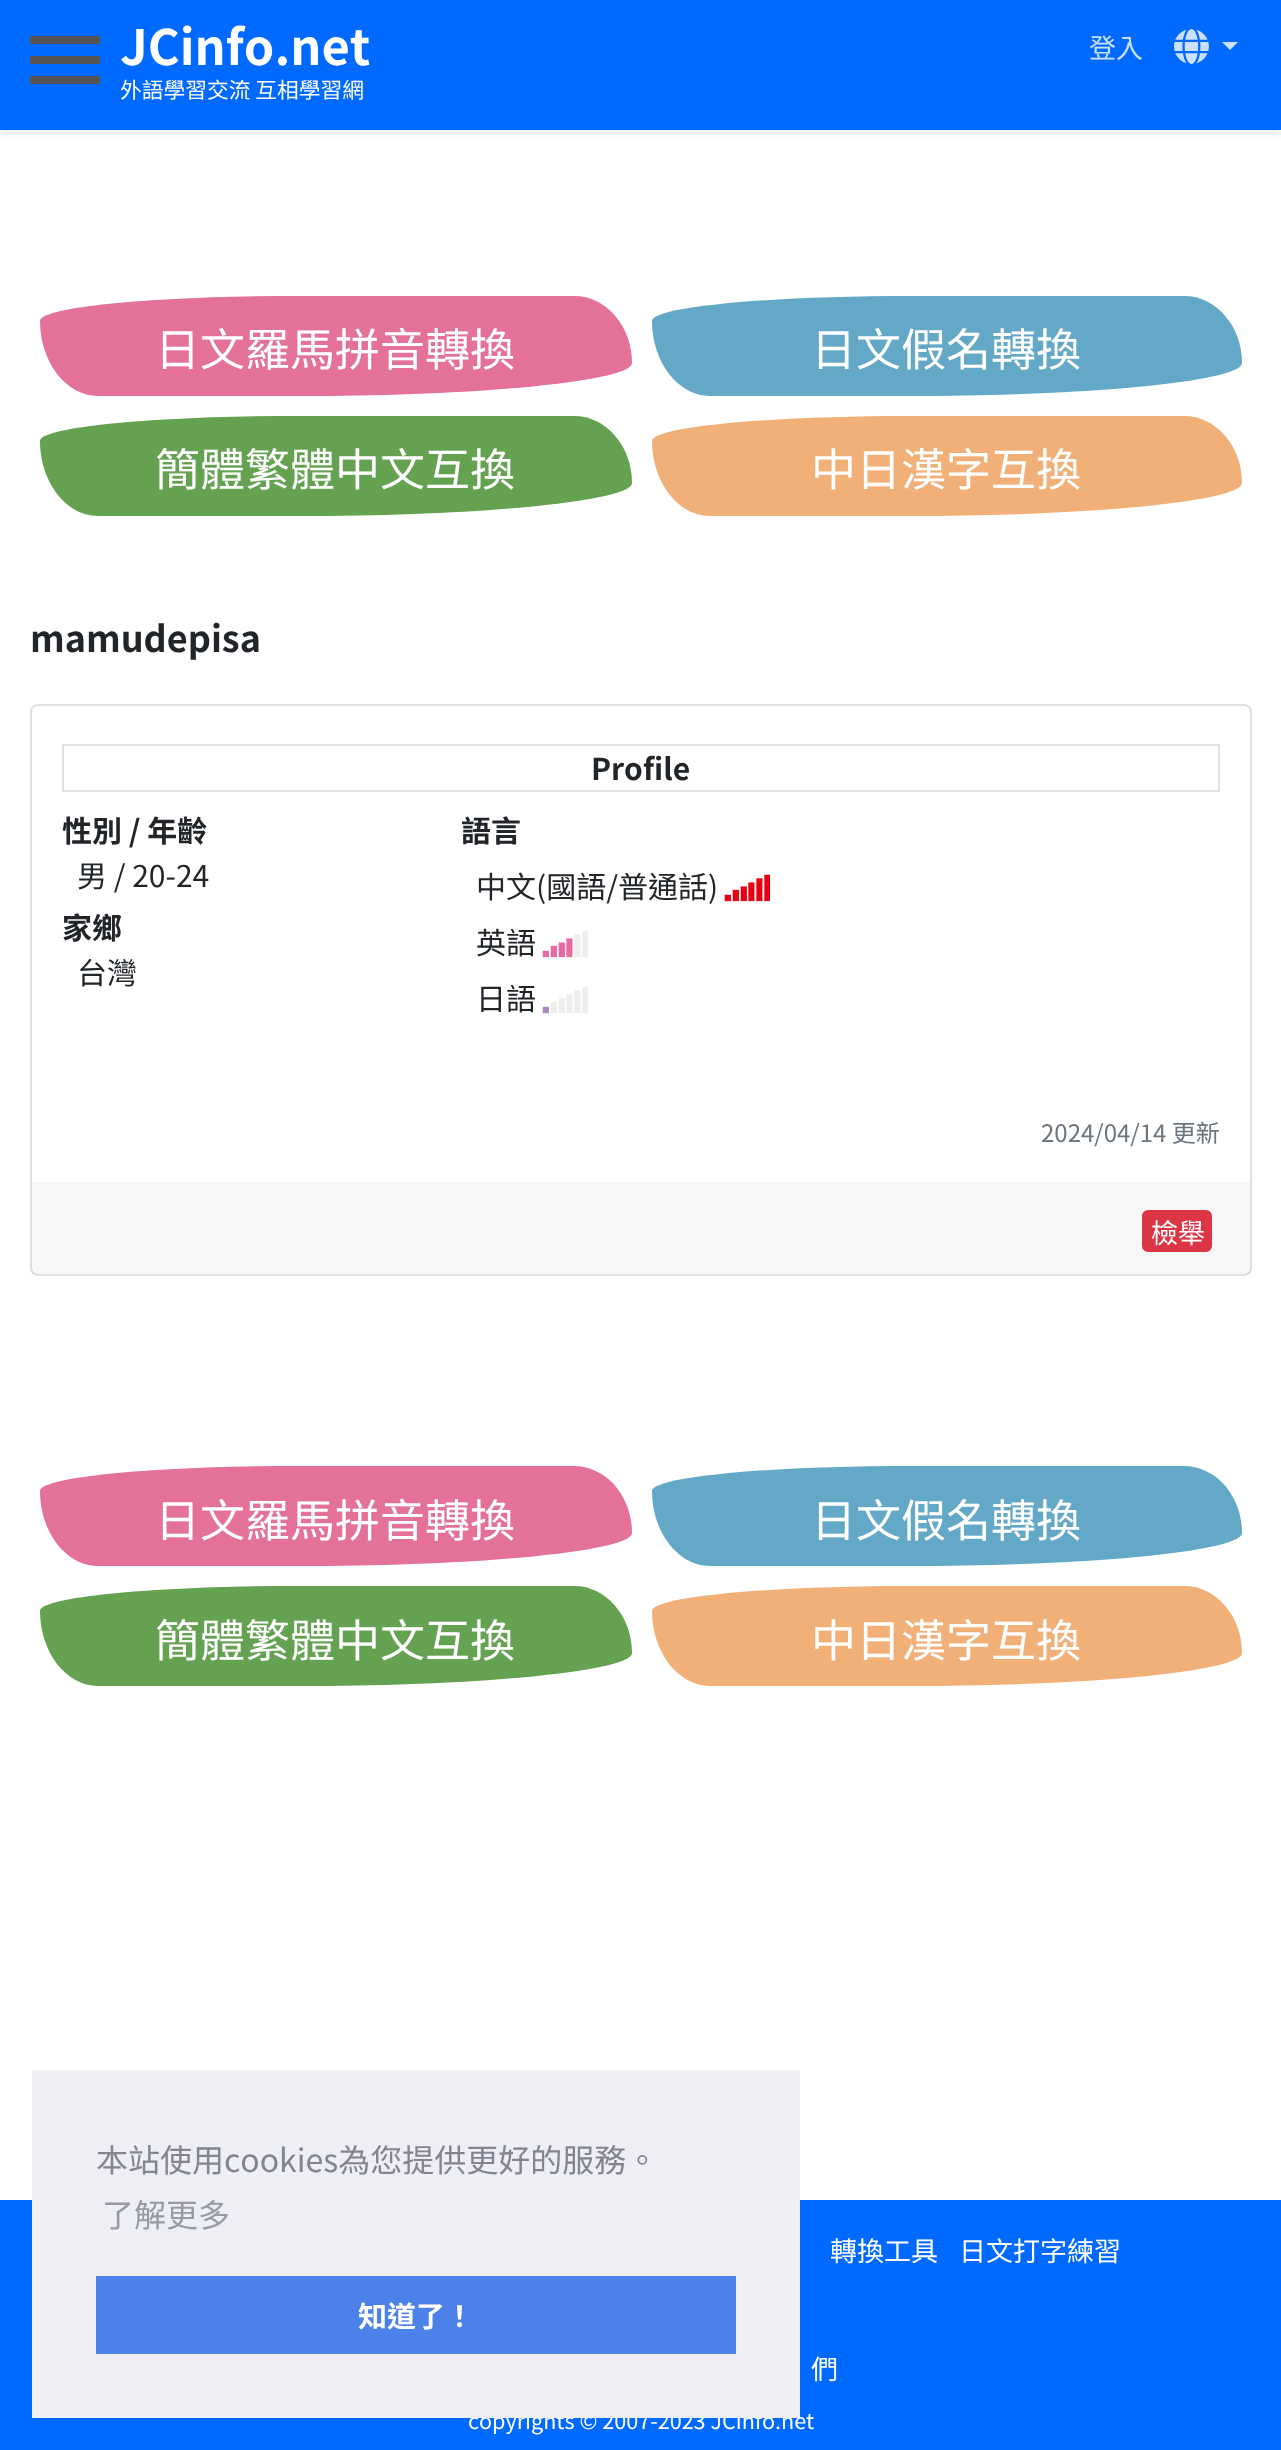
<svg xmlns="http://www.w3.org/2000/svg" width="1281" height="2450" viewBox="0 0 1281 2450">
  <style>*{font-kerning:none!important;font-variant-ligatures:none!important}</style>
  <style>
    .t1 { font: bold 48.75px Noto Sans TC; fill: #fff; }
    .t2 { font: 21.75px Noto Sans TC; fill: #fff; }
    .t3 { font: 27px Noto Sans TC; fill: #cce1ff; }
    .t4 { font: 45px Noto Sans TC; fill: #fff; }
    .t5 { font: bold 36px Noto Sans TC; fill: #212529; }
    .t6 { font: bold 30px Noto Sans TC; fill: #212529; }
    .t7 { font: 30px Noto Sans TC; fill: #212529; }
    .t8 { font: 24px Noto Sans TC; fill: #6c757d; }
    .t9 { font: 27px Noto Sans TC; fill: #fff; }
    .t10 { font: 21.6px Noto Sans TC; fill: #fff; }
    .t11 { font: 32px Noto Sans TC; fill: #838391; }
    .t12 { font: 32px Noto Sans TC; fill: #9899a5; }
    .t13 { font: bold 29px Noto Sans TC; fill: #fff; }
  </style>
  <rect width="100%" height="100%" fill="#fff"/>
  <rect x="0" y="4" width="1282" height="130" fill="#00000012" filter="blur(4px)"/>
  <rect x="0" y="0" width="1281" height="130" fill="#0069ff"/>
  <rect x="30" y="56" width="70" height="8" fill="#555"/>
  <rect x="30" y="36" width="70" height="8" fill="#555"/>
  <rect x="30" y="76" width="70" height="8" fill="#555"/>
  <text x="120" y="65" class="t1">JCinfo.net</text>
  <text x="120" y="98" class="t2">外語學習交流 互相學習網</text>
  <text x="1089" y="58" class="t3">登入</text>
  <image x="1174" y="29" width="35" height="35" href="images/1.png"/>
  <path d="M1222 42H1238L1230 50Z" fill="#cce1ff"/>
  <path d="M298 296H574C606 296 632 326 632 363C632 381 483 396 299 396H98C66 396 40 362 40 321C40 307 156 296 298 296Z" fill="#e37199"/>
  <text x="155" y="366" class="t4">日文羅馬拼音轉換</text>
  <path d="M910 296H1184C1216 296 1242 326 1242 363C1242 381 1093 396 909 396H710C678 396 652 362 652 321C652 307 768 296 910 296Z" fill="#63a9c7"/>
  <text x="811" y="366" class="t4">日文假名轉換</text>
  <path d="M298 416H574C606 416 632 446 632 483C632 501 483 516 299 516H98C66 516 40 482 40 441C40 427 156 416 298 416Z" fill="#64a150"/>
  <text x="155" y="486" class="t4">簡體繁體中文互換</text>
  <path d="M910 416H1184C1216 416 1242 446 1242 483C1242 501 1093 516 909 516H710C678 516 652 482 652 441C652 427 768 416 910 416Z" fill="#f2b079"/>
  <text x="811" y="486" class="t4">中日漢字互換</text>
  <text x="30" y="652" class="t5">mamudepisa</text>
  <rect x="31" y="705" width="1220" height="570" rx="7" fill="none" stroke="#dfdfdf" stroke-width="2"/>
  <rect x="63" y="745" width="1156" height="46" fill="none" stroke="#dee2e6" stroke-width="2"/>
  <text x="591" y="780" class="t6">Profile</text>
  <text x="62" y="842" class="t6">性別 / 年齡</text>
  <text x="77" y="887" class="t7">男 / 20-24</text>
  <text x="62" y="939" class="t6">家鄉</text>
  <text x="77" y="984" class="t7">台灣</text>
  <text x="461" y="842" class="t6">語言</text>
  <text x="476" y="898" class="t7">中文(國語/普通話)</text>
  <image x="724" y="874" width="46" height="28" href="images/2.png"/>
  <text x="476" y="954" class="t7">英語</text>
  <image x="542" y="931" width="46" height="27" href="images/3.png"/>
  <text x="476" y="1010" class="t7">日語</text>
  <image x="542" y="987" width="46" height="27" href="images/4.png"/>
  <text x="1041" y="1142" class="t8">2024/04/14 更新</text>
  <rect x="32" y="1182" width="1218" height="92" fill="#00000008"/>
  <rect x="1143" y="1211" width="68" height="40" rx="5" fill="#dc3545" stroke="#dc3545" stroke-width="2"/>
  <text x="1151" y="1243" class="t9">檢舉</text>
  <path d="M298 1466H574C606 1466 632 1496 632 1533C632 1551 483 1566 299 1566H98C66 1566 40 1532 40 1491C40 1477 156 1466 298 1466Z" fill="#e37199"/>
  <text x="155" y="1537" class="t4">日文羅馬拼音轉換</text>
  <path d="M910 1466H1184C1216 1466 1242 1496 1242 1533C1242 1551 1093 1566 909 1566H710C678 1566 652 1532 652 1491C652 1477 768 1466 910 1466Z" fill="#63a9c7"/>
  <text x="811" y="1537" class="t4">日文假名轉換</text>
  <path d="M298 1586H574C606 1586 632 1616 632 1653C632 1671 483 1686 299 1686H98C66 1686 40 1652 40 1611C40 1597 156 1586 298 1586Z" fill="#64a150"/>
  <text x="155" y="1657" class="t4">簡體繁體中文互換</text>
  <path d="M910 1586H1184C1216 1586 1242 1616 1242 1653C1242 1671 1093 1686 909 1686H710C678 1686 652 1652 652 1611C652 1597 768 1586 910 1586Z" fill="#f2b079"/>
  <text x="811" y="1657" class="t4">中日漢字互換</text>
  <rect x="0" y="2200" width="1281" height="250" fill="#0069ff"/>
  <text x="468" y="2429" class="t10">copyrights © 2007-2023 JCinfo.net</text>
  <rect x="32" y="2070" width="768" height="348" fill="#edeff5"/>
  <text x="96" y="2172" class="t11">本站使用cookies為您提供更好的服務。</text>
  <text x="102" y="2227" class="t12">了解更多</text>
  <rect x="96" y="2276" width="640" height="78" fill="#4b81e8"/>
  <text x="358" y="2327" class="t13">知道了！</text>
  <text x="830" y="2261" class="t9">轉換工具</text>
  <text x="959" y="2261" class="t9">日文打字練習</text>
  <text x="811" y="2379" class="t9">們</text>
</svg>
